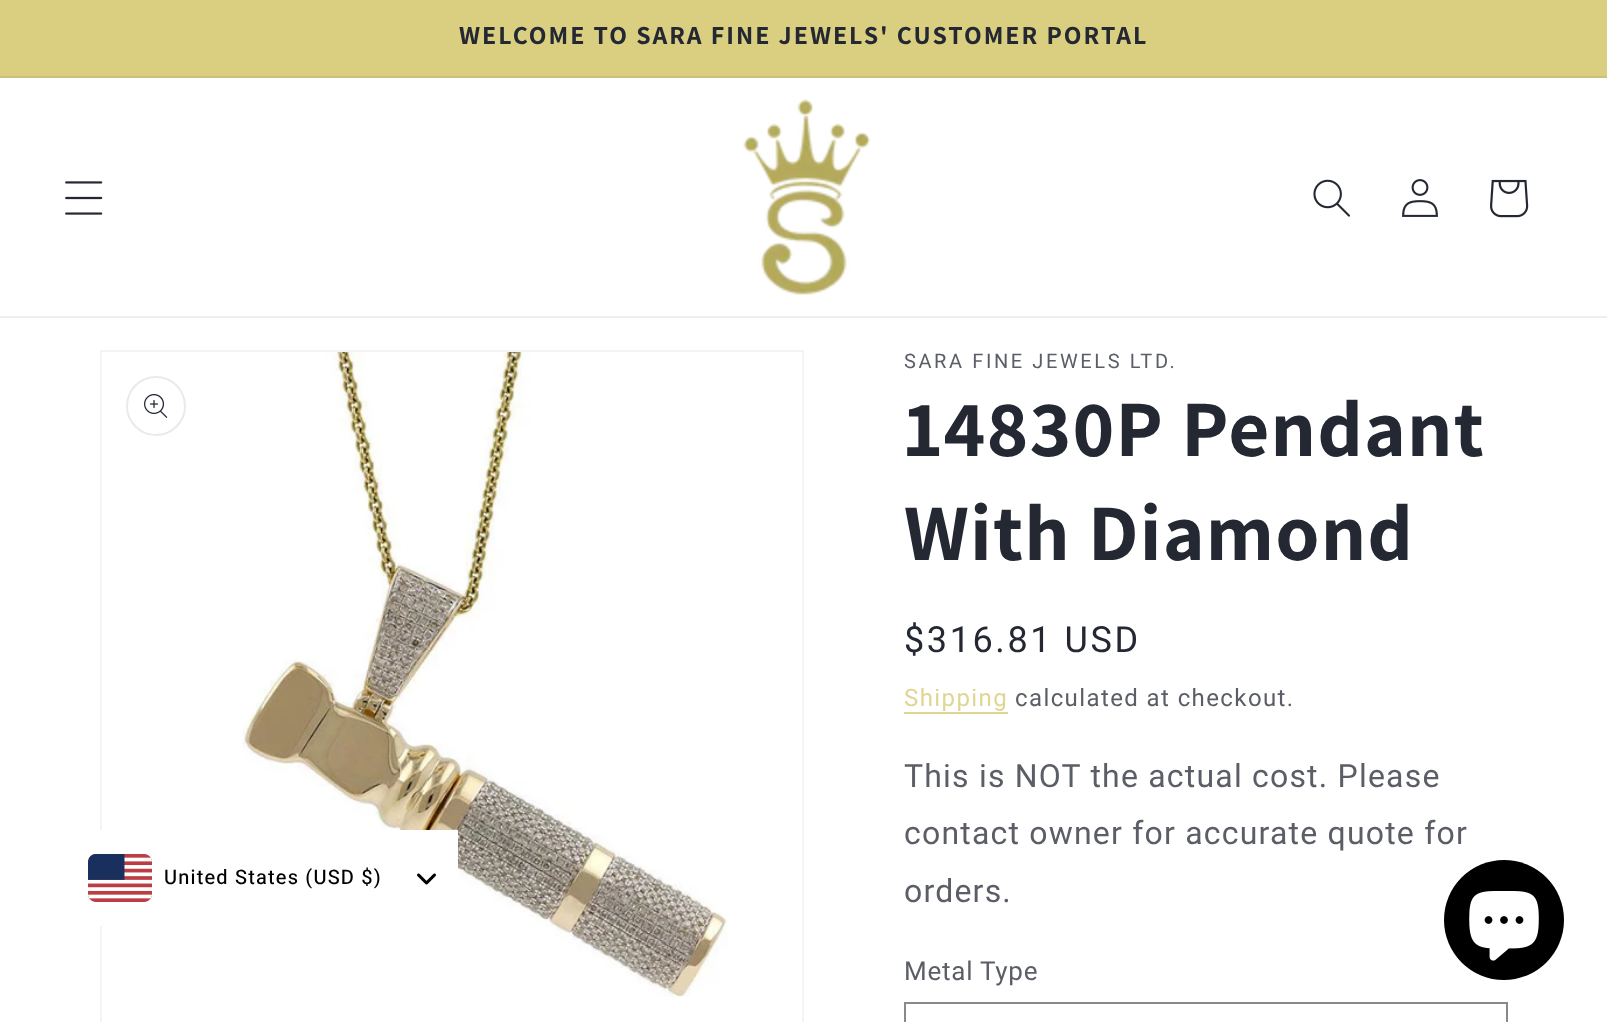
<svg xmlns="http://www.w3.org/2000/svg" width="1607" height="1022" viewBox="0 0 1607 1022">
  <style>
    .t1 { font: bold 26px Assistant; letter-spacing: 2px; fill: #242833; }
    .t2 { font: 20px 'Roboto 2'; letter-spacing: 1.2px; fill: #000; }
    .t3 { font: 20px Roboto; letter-spacing: 2.6px; fill: #5b5e66; }
    .t4 { font: bold 80px Assistant; letter-spacing: 1.2px; fill: #242833; }
    .t5 { font: 36px Roboto; letter-spacing: 2.6px; fill: #242833; }
    .t6 { font: 24px Roboto; letter-spacing: 1.4px; fill: #e0d693; }
    .t7 { font: 24px Roboto; letter-spacing: 1.4px; fill: #5b5e66; }
    .t8 { font: 32px Roboto; letter-spacing: 1.2px; fill: #5b5e66; }
    .t9 { font: 26px Roboto; letter-spacing: 0.75px; fill: #5b5e66; }
  </style>
  <rect width="100%" height="100%" fill="#fff"/>
  <rect x="0" y="0" width="1607" height="76" fill="#dacf80"/>
  <rect x="0" y="76" width="1607" height="2" fill="#cbc27a"/>
  <text x="459" y="44" class="t1">WELCOME TO SARA FINE JEWELS' CUSTOMER PORTAL</text>
  <rect x="0" y="316" width="1607" height="2" fill="#edeeef"/>
  <image x="65" y="181" width="38" height="34" href="images/1.png"/>
  <image x="743" y="99" width="128" height="196" href="images/2.png"/>
  <image x="1313" y="179" width="37" height="38" href="images/3.png"/>
  <image x="1402" y="179" width="36" height="38" href="images/4.png"/>
  <image x="1490" y="179" width="39" height="39" href="images/5.png"/>
  <rect x="101" y="351" width="702" height="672" fill="none" stroke="#f4f4f5" stroke-width="2"/>
  <image x="242" y="352" width="486" height="645" href="images/9.png"/>
  <rect x="100" y="830" width="358" height="96" fill="#fff"/>
  <image x="88" y="854" width="64" height="48" href="images/6.png"/>
  <text x="164" y="884" class="t2">United States (USD $)</text>
  <image x="417" y="873" width="19" height="12" href="images/7.png"/>
  <circle cx="156" cy="406" r="29" fill="none" stroke="#e9eaeb" stroke-width="2"/>
  <image x="144" y="394" width="24" height="24" href="images/8.png"/>
  <text x="904" y="368" class="t3">SARA FINE JEWELS LTD.</text>
  <text x="904" y="456" class="t4">14830P Pendant</text>
  <text x="904" y="560" class="t4">With Diamond</text>
  <text x="904" y="652" class="t5">$316.81 USD</text>
  <text x="904" y="706" class="t6">Shipping</text>
  <rect x="904" y="712" width="104" height="2" fill="#e0d693"/>
  <text x="1015" y="706" class="t7">calculated at checkout.</text>
  <text x="904" y="787" class="t8">This is NOT the actual cost. Please</text>
  <text x="904" y="844" class="t8">contact owner for accurate quote for</text>
  <text x="904" y="902" class="t8">orders.</text>
  <text x="904" y="980" class="t9">Metal Type</text>
  <rect x="905" y="1003" width="602" height="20" fill="none" stroke="#87898f" stroke-width="2"/>
  <circle cx="1504" cy="920" r="60" fill="#000"/>
  <image x="1469" y="891" width="70" height="70" href="images/10.png"/>
</svg>
